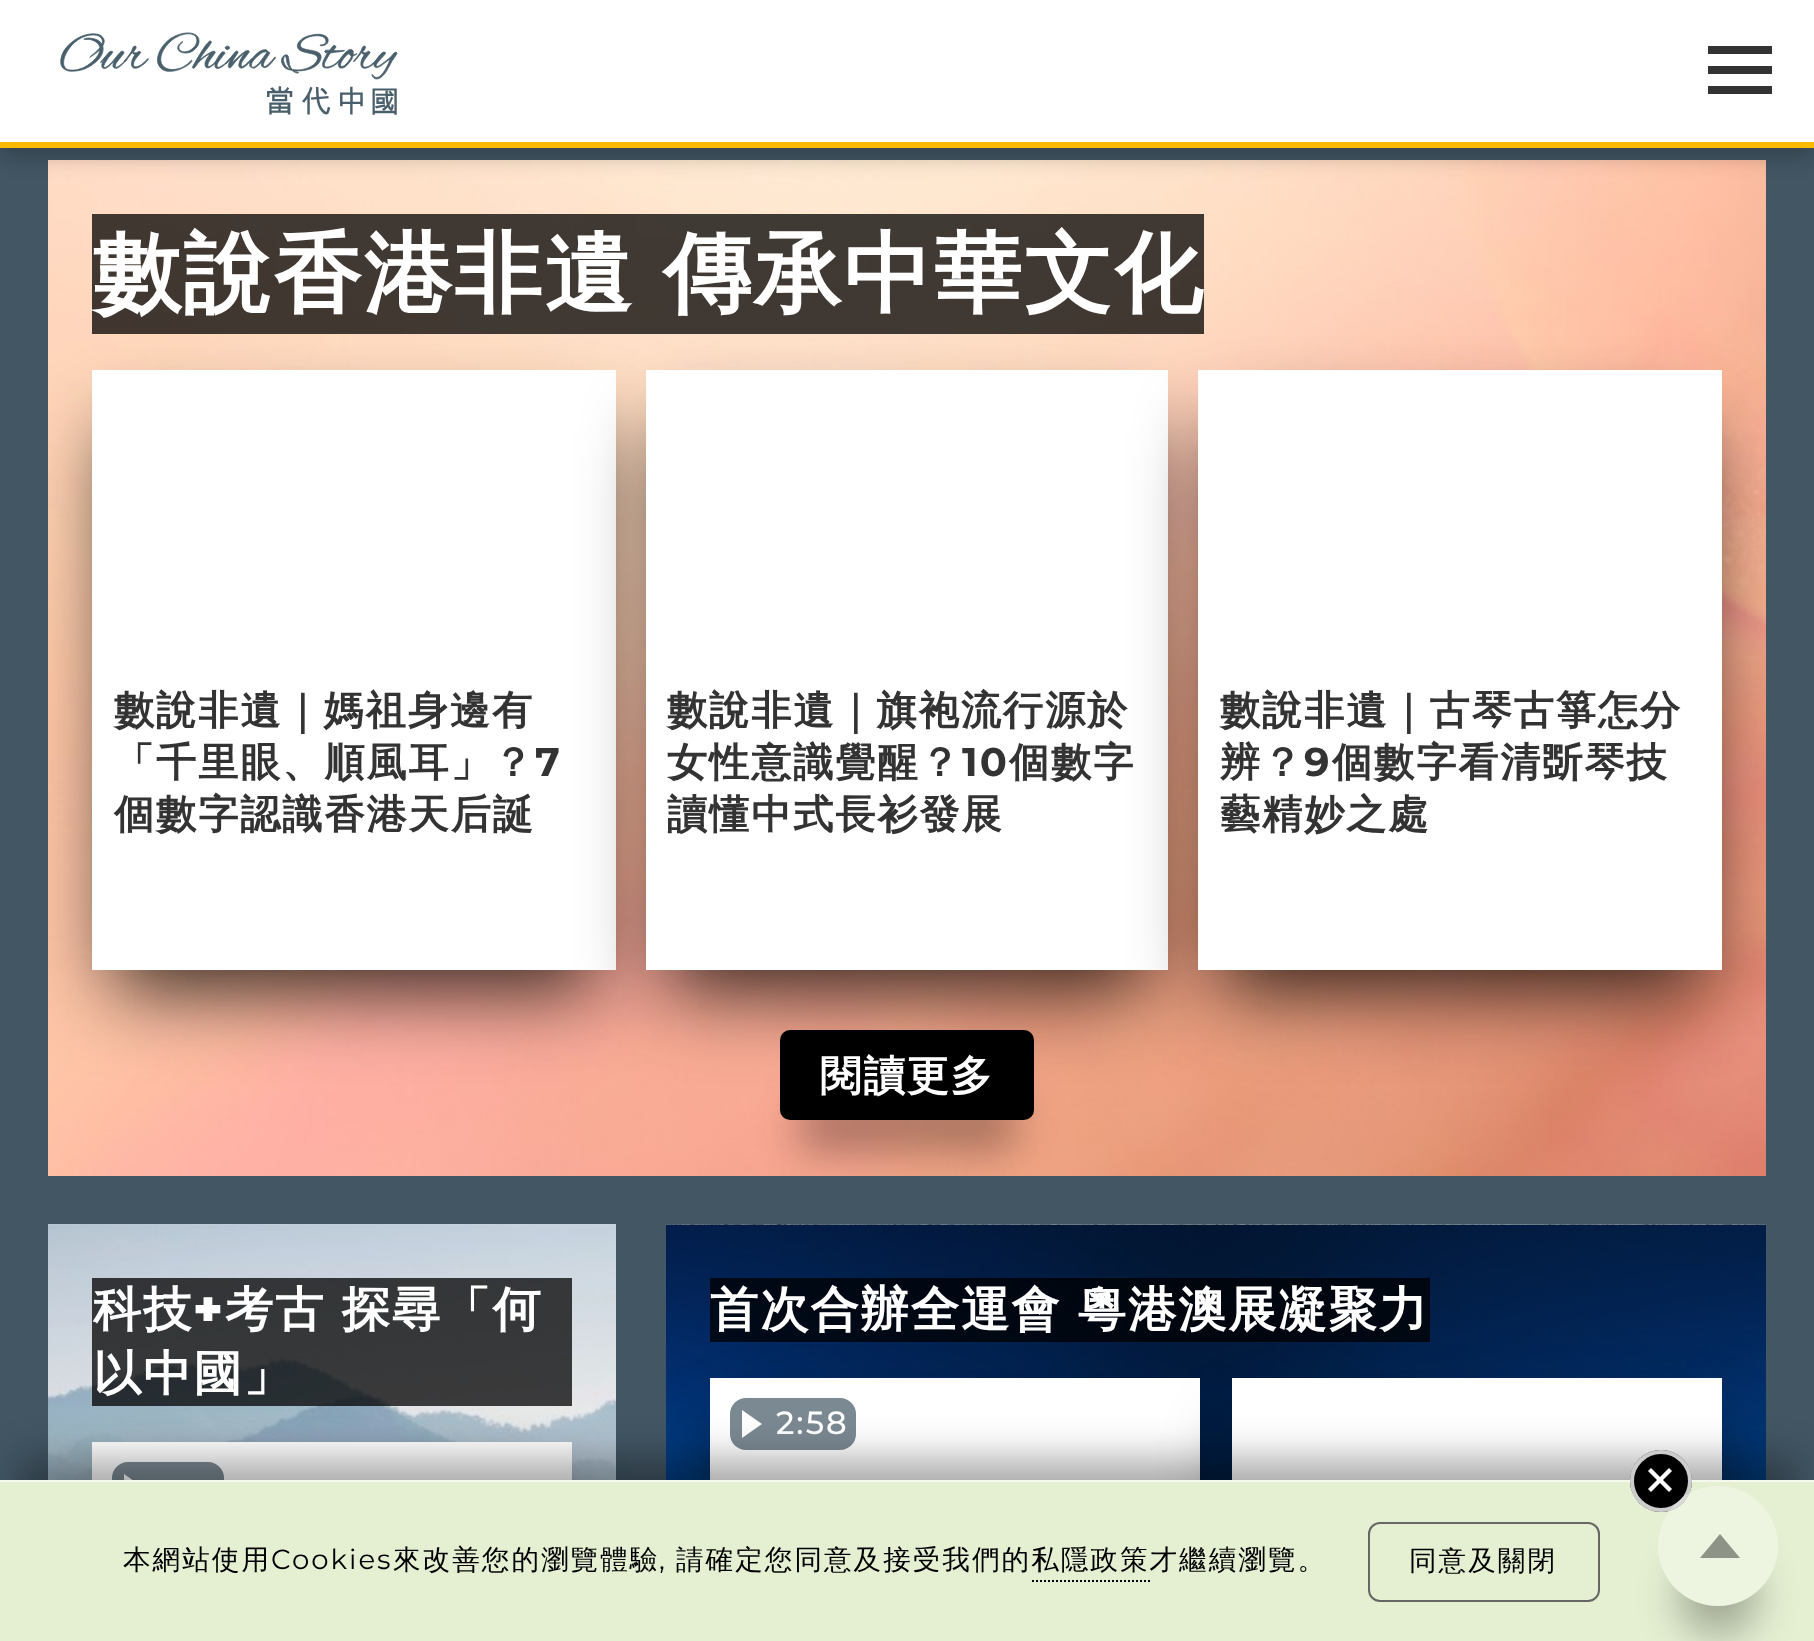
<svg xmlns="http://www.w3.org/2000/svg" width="1814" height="1641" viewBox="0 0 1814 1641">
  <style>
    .t1 { font: bold 88.25px WenQuanYi Zen Hei; letter-spacing: 2px; fill: #fff; }
    .t2 { font: bold 40.1px WenQuanYi Zen Hei; letter-spacing: 2px; fill: #333; }
    .t3 { font: bold 40.1px Montserrat; letter-spacing: 2px; fill: #333; }
    .t4 { font: bold 41.5px WenQuanYi Zen Hei; letter-spacing: 2px; fill: #fff; }
    .t5 { font: bold 48.2px WenQuanYi Zen Hei; letter-spacing: 2px; fill: #fff; }
    .t6 { font: 900 48.2px Montserrat; letter-spacing: 2px; fill: #fff; }
    .t7 { font: 500 32px Montserrat; letter-spacing: 2px; fill: #fff; }
    .t8 { font: 500 27.6px WenQuanYi Zen Hei; letter-spacing: 2px; fill: #000; }
    .t9 { font: 27.6px Montserrat; letter-spacing: 2px; fill: #000; }
  </style>
  <defs>
    <linearGradient id="g1" gradientUnits="userSpaceOnUse" x1="907" y1="-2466" x2="907" y2="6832"><stop offset="0" stop-color="#212b32"/><stop offset="0.06" stop-color="#425664"/><stop offset="1" stop-color="#425664"/></linearGradient>
    <clipPath id="clip1"><rect x="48" y="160" width="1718" height="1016"/></clipPath>
    <clipPath id="clip2"><rect x="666" y="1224" width="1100" height="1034"/></clipPath>
    <clipPath id="clip3"><path d="M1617 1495H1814V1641H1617ZM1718 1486C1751 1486 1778 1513 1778 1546C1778 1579 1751 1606 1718 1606C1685 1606 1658 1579 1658 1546C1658 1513 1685 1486 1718 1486Z" clip-rule="evenodd"/></clipPath>
  </defs>
  <rect width="100%" height="100%" fill="#fff"/>
  <rect x="0" y="148" width="1814" height="1332" fill="url(#g1)"/>
  <image x="48" y="160" width="1718" height="1016" href="images/2.png"/>
  <rect x="0" y="10" width="1814" height="148" fill="#00000033" filter="blur(10px)"/>
  <rect x="0" y="0" width="1814" height="142" fill="#fff"/>
  <rect x="0" y="142" width="1814" height="6" fill="#fbba00"/>
  <image x="60" y="32" width="338" height="83" href="images/1.png"/>
  <rect x="1708" y="46" width="64" height="8" fill="#333"/>
  <rect x="1708" y="66" width="64" height="8" fill="#333"/>
  <rect x="1708" y="86" width="64" height="8" fill="#333"/>
  <rect x="92" y="214" width="1112" height="120" fill="#000000bf"/>
  <text x="93" y="304" class="t1">數說香港非遺 傳承中華文化</text>
  <g clip-path="url(#clip1)">
    <rect x="112" y="430" width="484" height="560" fill="#000000cc" filter="blur(40px)"/>
  </g>
  <rect x="92" y="370" width="524" height="600" fill="#fff"/>
  <text x="114" y="724" class="t2">數說非遺｜媽祖身邊有</text>
  <text x="114" y="776" class="t2">「千里眼、順風耳」？</text>
  <text x="535" y="776" class="t3">7</text>
  <text x="114" y="828" class="t2">個數字認識香港天后誕</text>
  <rect x="666" y="430" width="482" height="560" fill="#000000cc" filter="blur(40px)"/>
  <rect x="646" y="370" width="522" height="600" fill="#fff"/>
  <text x="667" y="724" class="t2">數說非遺｜旗袍流行源於</text>
  <text x="667" y="776" class="t2">女性意識覺醒？</text>
  <text x="962" y="776" class="t3">10</text>
  <text x="1009" y="776" class="t2">個數字</text>
  <text x="667" y="828" class="t2">讀懂中式長衫發展</text>
  <g clip-path="url(#clip1)">
    <rect x="1218" y="430" width="484" height="560" fill="#000000cc" filter="blur(40px)"/>
  </g>
  <rect x="1198" y="370" width="524" height="600" fill="#fff"/>
  <text x="1220" y="724" class="t2">數說非遺｜古琴古箏怎分</text>
  <text x="1220" y="776" class="t2">辨？</text>
  <text x="1304" y="776" class="t3">9</text>
  <text x="1332" y="776" class="t2">個數字看清斲琴技</text>
  <text x="1220" y="828" class="t2">藝精妙之處</text>
  <g clip-path="url(#clip1)">
    <rect x="800" y="1100" width="214" height="50" fill="#0000004d" filter="blur(20px)"/>
  </g>
  <rect x="780" y="1030" width="254" height="90" rx="10" fill="#000"/>
  <text x="820" y="1090" class="t4">閱讀更多</text>
  <image x="48" y="1224" width="568" height="256" href="images/3.png"/>
  <rect x="92" y="1278" width="480" height="128" fill="#000000bf"/>
  <text x="93" y="1326" class="t5">科技</text>
  <text x="193" y="1326" class="t6">+</text>
  <text x="225" y="1326" class="t5">考古 探尋「何</text>
  <text x="93" y="1390" class="t5">以中國」</text>
  <rect x="112" y="1502" width="440" height="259" fill="#000000cc" filter="blur(40px)"/>
  <rect x="92" y="1442" width="480" height="38" fill="#fff"/>
  <rect x="112" y="1462" width="112" height="52" rx="16" fill="#7b8993"/>
  <path d="M124 1502V1474L144 1488Z" fill="#fff"/>
  <image x="666" y="1224" width="1100" height="256" href="images/4.png"/>
  <rect x="710" y="1278" width="720" height="64" fill="#000000bf"/>
  <text x="710" y="1326" class="t5">首次合辦全運會 粵港澳展凝聚力</text>
  <g clip-path="url(#clip2)">
    <rect x="730" y="1438" width="450" height="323" fill="#000000cc" filter="blur(40px)"/>
  </g>
  <rect x="710" y="1378" width="490" height="102" fill="#fff"/>
  <rect x="730" y="1398" width="126" height="52" rx="16" fill="#7b8993"/>
  <path d="M742 1438V1410L762 1424Z" fill="#fff"/>
  <text x="776" y="1434" class="t7">2:58</text>
  <g clip-path="url(#clip2)">
    <rect x="1252" y="1438" width="450" height="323" fill="#000000cc" filter="blur(40px)"/>
  </g>
  <rect x="1232" y="1378" width="490" height="102" fill="#fff"/>
  <rect x="20" y="1460" width="1774" height="122" fill="#00000059" filter="blur(20px)"/>
  <rect x="0" y="1482" width="1814" height="159" fill="#e5f0d3"/>
  <rect x="0" y="1480" width="1814" height="2" fill="#f5f9ed"/>
  <circle cx="1661" cy="1481" r="31" fill="#000"/>
  <circle cx="1661" cy="1481" r="29" fill="none" stroke="#ffffffcc" stroke-width="4"/>
  <path d="M1648 1489L1669 1468L1672 1471L1651 1492Z" fill="#fff"/>
  <path d="M1651 1468L1672 1489L1669 1492L1648 1471Z" fill="#fff"/>
  <text x="123" y="1569" class="t8">本網站使用</text>
  <text x="271" y="1569" class="t9">Cookies</text>
  <text x="393" y="1569" class="t8">來改善您的瀏覽體驗</text>
  <text x="659" y="1569" class="t9">,</text>
  <text x="676" y="1569" class="t8">請確定您同意及接受我們的私隱政策才繼續瀏覽。</text>
  <path d="M1032 1581H1150" fill="none" stroke="#000" stroke-width="2" stroke-dasharray="2 2"/>
  <rect x="1369" y="1523" width="230" height="78" rx="11" fill="none" stroke="#666" stroke-width="2"/>
  <text x="1409" y="1570" class="t8">同意及關閉</text>
  <g clip-path="url(#clip3)">
    <rect x="1678" y="1556" width="80" height="80" rx="40" fill="#0000004d" filter="blur(20px)"/>
  </g>
  <circle cx="1718" cy="1546" r="60" fill="#ffffff4d"/>
  <path d="M1740 1558H1700L1720 1534Z" fill="#8e9387"/>
</svg>
